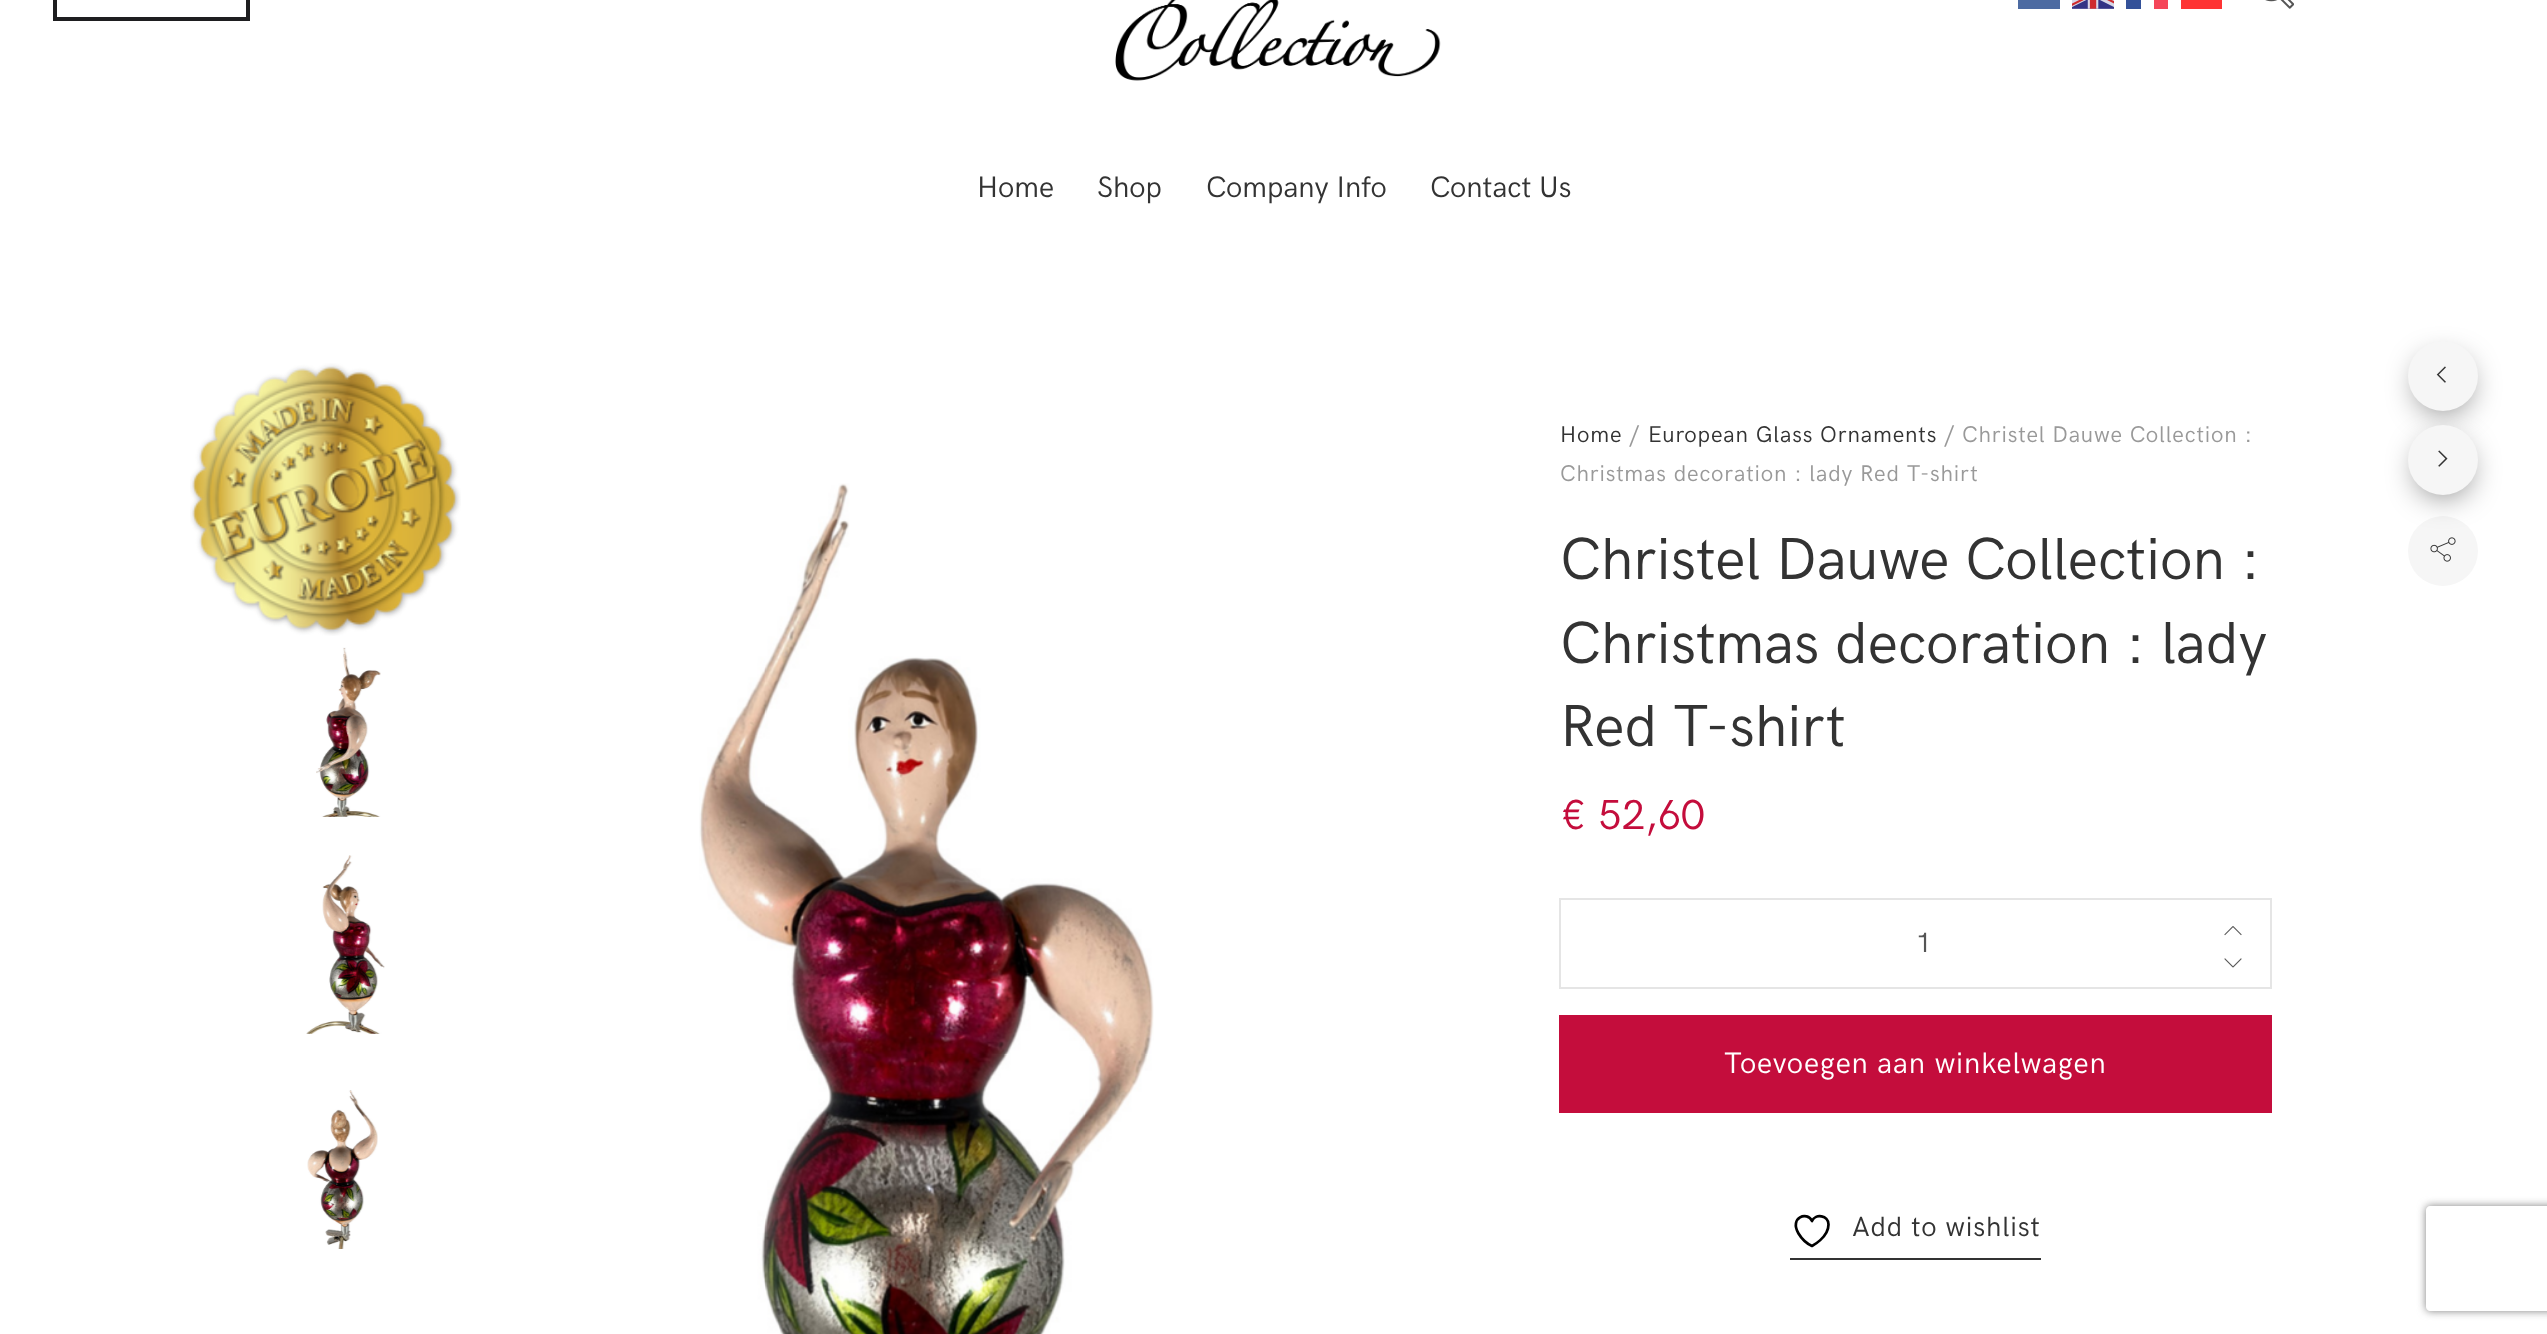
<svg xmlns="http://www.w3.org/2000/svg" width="2547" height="1334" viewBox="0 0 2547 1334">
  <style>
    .t1 { font: 29.75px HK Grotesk; fill: #333; }
    .t2 { font: 22.75px HK Grotesk; letter-spacing: 0.85px; fill: #333; }
    .t3 { font: 22.75px HK Grotesk; letter-spacing: 0.85px; fill: #999; }
    .t4 { font: 59.5px HK Grotesk; fill: #333; }
    .t5 { font: 42px HK Grotesk; fill: #c40d3c; }
    .t6 { font: 28px HK Grotesk; letter-spacing: 0.85px; fill: #555; }
    .t7 { font: 29.75px HK Grotesk; letter-spacing: 0.85px; fill: #fff; }
    .t8 { font: 28px HK Grotesk; letter-spacing: 0.85px; fill: #333; }
  </style>
  <defs>
    <clipPath id="clip1"><path d="M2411 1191H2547V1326H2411ZM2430 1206H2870C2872 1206 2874 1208 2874 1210V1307C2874 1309 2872 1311 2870 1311H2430C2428 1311 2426 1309 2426 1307V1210C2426 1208 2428 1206 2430 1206Z" clip-rule="evenodd"/></clipPath>
  </defs>
  <rect width="100%" height="100%" fill="#fff"/>
  <rect x="55" y="-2" width="193" height="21" fill="none" stroke="#1e1e20" stroke-width="4"/>
  <image x="1115" y="0" width="326" height="81" href="images/1.png"/>
  <rect x="2018" y="0" width="42" height="9" fill="#4d6ba2"/>
  <image x="2072" y="0" width="42" height="9" href="images/2.png"/>
  <rect x="2126" y="0" width="15" height="9" fill="#335199"/>
  <rect x="2154" y="0" width="14" height="9" fill="#f54659"/>
  <rect x="2181" y="0" width="41" height="9" fill="#fe3434"/>
  <image x="2265" y="0" width="29" height="9" href="images/3.png"/>
  <text x="977" y="197" class="t1">Home</text>
  <text x="1097" y="197" class="t1">Shop</text>
  <text x="1206" y="197" class="t1">Company Info</text>
  <text x="1430" y="197" class="t1">Contact Us</text>
  <image x="190" y="363" width="271" height="273" href="images/4.png"/>
  <image x="316" y="647" width="65" height="170" href="images/5.png"/>
  <image x="306" y="855" width="79" height="179" href="images/6.png"/>
  <image x="307" y="1090" width="71" height="159" href="images/7.png"/>
  <image x="699" y="483" width="455" height="851" href="images/8.png"/>
  <text x="1560" y="442" class="t2">Home</text>
  <text x="1629" y="442" class="t3">/</text>
  <text x="1648" y="442" class="t2">European Glass Ornaments</text>
  <text x="1944" y="442" class="t3">/ Christel Dauwe Collection :</text>
  <text x="1560" y="481" class="t3">Christmas decoration : lady Red T-shirt</text>
  <rect x="2419" y="361" width="49" height="49" rx="24.5" fill="#00000099" filter="blur(16px)"/>
  <circle cx="2443" cy="376" r="35" fill="#f6f6f6"/>
  <image x="2436" y="366" width="10" height="17" href="images/9.png"/>
  <circle cx="2443" cy="551" r="35" fill="#f6f6f6"/>
  <image x="2430" y="537" width="26" height="25" href="images/11.png"/>
  <rect x="2419" y="445" width="49" height="49" rx="24.5" fill="#00000099" filter="blur(16px)"/>
  <circle cx="2443" cy="460" r="35" fill="#f6f6f6"/>
  <image x="2438" y="450" width="10" height="17" href="images/10.png"/>
  <text x="1560" y="579" class="t4">Christel Dauwe Collection :</text>
  <text x="1560" y="663" class="t4">Christmas decoration : lady</text>
  <text x="1560" y="746" class="t4">Red T-shirt</text>
  <text x="1560" y="829" class="t5">€</text>
  <text x="1598" y="829" class="t5">52,60</text>
  <rect x="1560" y="899" width="711" height="89" fill="none" stroke="#e5e5e5" stroke-width="2"/>
  <text x="1916" y="952" class="t6">1</text>
  <image x="2224" y="926" width="18" height="10" href="images/12.png"/>
  <image x="2224" y="958" width="18" height="10" href="images/13.png"/>
  <rect x="1559" y="1015" width="713" height="98" fill="#c40d3c"/>
  <text x="1724" y="1073" class="t7">Toevoegen aan winkelwagen</text>
  <rect x="1790" y="1258" width="251" height="2" fill="#333"/>
  <path d="M1828.5 1224.5C1828.5 1215.5 1815.5 1213 1812 1221C1807.5 1211 1789 1217 1798.5 1233.5C1801.5 1238.5 1806.5 1243.5 1812 1246C1812 1246 1828.5 1237.5 1828.5 1224.5Z" fill="none" stroke="#000" stroke-width="2.7" stroke-linecap="round" stroke-linejoin="round"/>
  <text x="1852" y="1236" class="t8">Add to wishlist</text>
  <g clip-path="url(#clip1)">
    <rect x="2426" y="1206" width="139" height="105" rx="4" fill="#808080" filter="blur(4.5px)"/>
  </g>
</svg>
